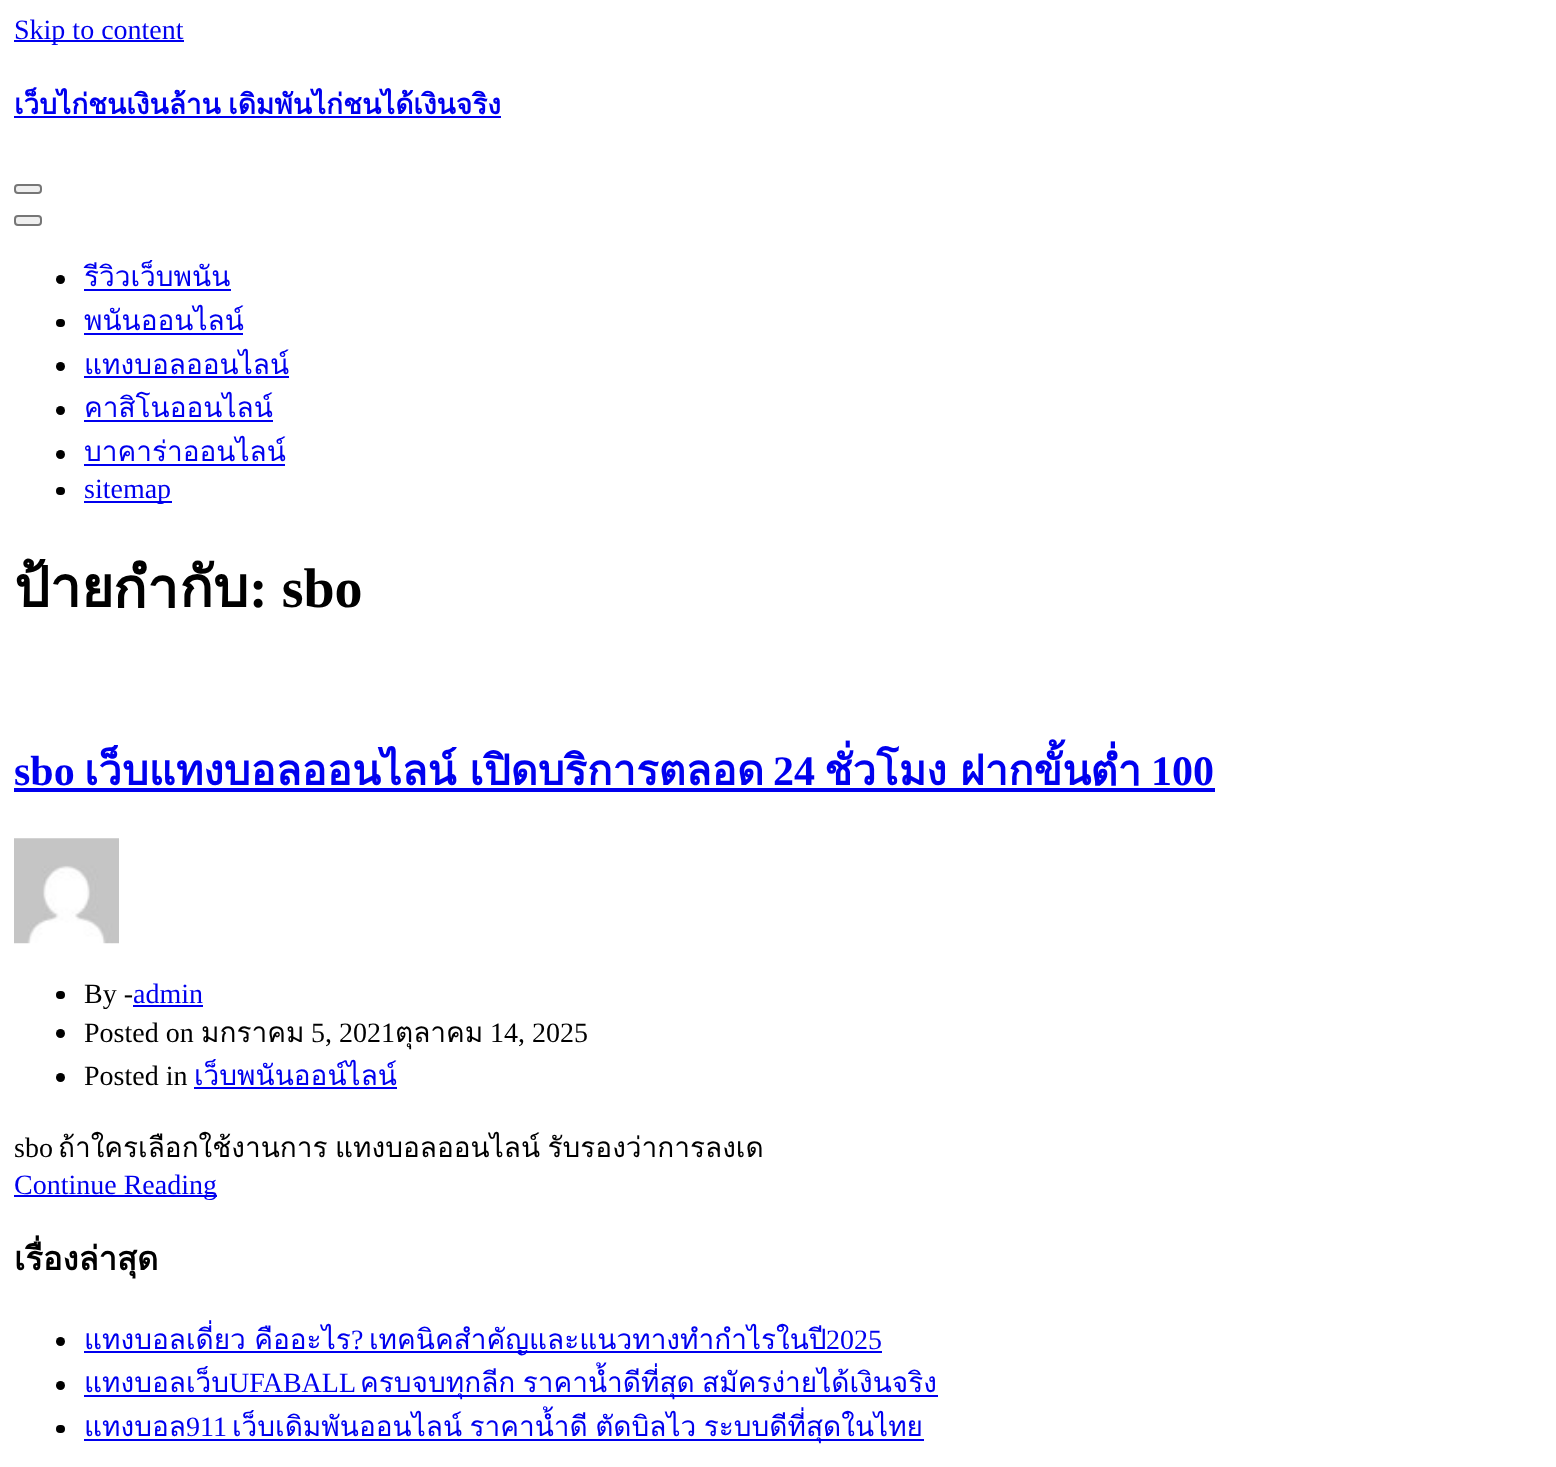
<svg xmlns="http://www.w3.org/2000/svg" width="1556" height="1467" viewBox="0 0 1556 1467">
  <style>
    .t1 { font: 28px Liberation Serif; fill: #00e; }
    .t2 { font: bold 28px Loma; fill: #00e; }
    .t3 { font: 28px Loma; fill: #00e; }
    .t4 { font: bold 56px Loma; fill: #000; }
    .t5 { font: bold 56px Liberation Serif; fill: #000; }
    .t6 { font: bold 42px Liberation Serif; fill: #00e; }
    .t7 { font: bold 42px Loma; fill: #00e; }
    .t8 { font: 28px Liberation Serif; fill: #000; }
    .t9 { font: 28px Loma; fill: #000; }
    .t10 { font: bold 32.75px Loma; fill: #000; }
  </style>
  <rect width="100%" height="100%" fill="#fff"/>
  <rect x="14" y="40" width="170" height="2" fill="#00e"/>
  <text x="14" y="39" class="t1">Skip to content</text>
  <text x="14" y="114" word-spacing="-2" class="t2">เว็บไก่ชนเงินล้าน เดิมพันไก่ชนได้เงินจริง</text>
  <rect x="14" y="116" width="487" height="2" fill="#00e"/>
  <rect x="15" y="185" width="26" height="8" rx="3" fill="#efefef" stroke="#767676" stroke-width="2"/>
  <rect x="15" y="216" width="26" height="9" rx="3" fill="#efefef" stroke="#767676" stroke-width="2"/>
  <circle cx="60.5" cy="279.5" r="4.5" fill="#000"/>
  <text x="84" y="286" class="t3">รีวิวเว็บพนัน</text>
  <rect x="84" y="289" width="147" height="2" fill="#00e"/>
  <rect x="56" y="319" width="9" height="8" rx="4" fill="#000"/>
  <text x="84" y="330" class="t3">พนันออนไลน์</text>
  <rect x="84" y="333" width="159" height="2" fill="#00e"/>
  <circle cx="60.5" cy="366.5" r="4.5" fill="#000"/>
  <text x="84" y="374" class="t3">แทงบอลออนไลน์</text>
  <rect x="84" y="376" width="205" height="2" fill="#00e"/>
  <circle cx="60.5" cy="410.5" r="4.5" fill="#000"/>
  <text x="84" y="417" class="t3">คาสิโนออนไลน์</text>
  <rect x="84" y="420" width="189" height="2" fill="#00e"/>
  <circle cx="60.5" cy="454.5" r="4.5" fill="#000"/>
  <text x="84" y="461" class="t3">บาคาร่าออนไลน์</text>
  <rect x="84" y="464" width="201" height="2" fill="#00e"/>
  <rect x="56" y="487" width="9" height="8" rx="4" fill="#000"/>
  <rect x="84" y="501" width="88" height="2" fill="#00e"/>
  <text x="84" y="498" class="t1">sitemap</text>
  <text x="14" y="607" class="t4">ป้ายกำกับ</text>
  <text x="249" y="607" class="t5">: sbo</text>
  <text x="14" y="785" class="t6">sbo</text>
  <text x="84" y="785" word-spacing="-1" class="t7">เว็บแทงบอลออนไลน์ เปิดบริการตลอด</text>
  <text x="773" y="785" class="t6">24</text>
  <text x="824" y="785" word-spacing="-1" class="t7">ชั่วโมง ฝากขั้นต่ำ</text>
  <text x="1151" y="785" class="t6">100</text>
  <rect x="14" y="788" width="1201" height="4" fill="#00e"/>
  <image x="14" y="838" width="105" height="106" href="images/1.png"/>
  <rect x="56" y="991" width="9" height="8" rx="4" fill="#000"/>
  <text x="84" y="1003" class="t8">By -</text>
  <text x="133" y="1003" class="t1">admin</text>
  <rect x="133" y="1005" width="70" height="2" fill="#00e"/>
  <circle cx="60.5" cy="1033.5" r="4.5" fill="#000"/>
  <text x="84" y="1042" class="t8">Posted on</text>
  <text x="201" y="1042" class="t9">มกราคม</text>
  <text x="311" y="1042" class="t8">5, 2021</text>
  <text x="395" y="1042" class="t9">ตุลาคม</text>
  <text x="490" y="1042" class="t8">14, 2025</text>
  <circle cx="60.5" cy="1077.5" r="4.5" fill="#000"/>
  <text x="84" y="1085" class="t8">Posted in</text>
  <text x="194" y="1085" class="t3">เว็บพนันออน์ไลน์</text>
  <rect x="194" y="1087" width="203" height="2" fill="#00e"/>
  <text x="14" y="1157" class="t8">sbo</text>
  <text x="58" y="1157" word-spacing="-2" class="t9">ถ้าใครเลือกใช้งานการ แทงบอลออนไลน์ รับรองว่าการลงเด</text>
  <rect x="14" y="1195" width="203" height="2" fill="#00e"/>
  <text x="14" y="1194" class="t1">Continue Reading</text>
  <text x="14" y="1270" class="t10">เรื่องล่าสุด</text>
  <circle cx="60.5" cy="1341.5" r="4.5" fill="#000"/>
  <text x="84" y="1349" word-spacing="-1" class="t3">แทงบอลเดี่ยว คืออะไร</text>
  <text x="351" y="1349" class="t1">?</text>
  <rect x="84" y="1351" width="798" height="2" fill="#00e"/>
  <text x="369" y="1349" class="t3">เทคนิคสำคัญและแนวทางทำกำไรในปี</text>
  <text x="826" y="1349" class="t1">2025</text>
  <circle cx="60.5" cy="1385.5" r="4.5" fill="#000"/>
  <text x="84" y="1392" class="t3">แทงบอลเว็บ</text>
  <text x="229" y="1392" class="t1">UFABALL</text>
  <rect x="84" y="1395" width="854" height="2" fill="#00e"/>
  <text x="360" y="1392" word-spacing="-2" class="t3">ครบจบทุกลีก ราคาน้ำดีที่สุด สมัครง่ายได้เงินจริง</text>
  <rect x="56" y="1425" width="9" height="8" rx="4" fill="#000"/>
  <text x="84" y="1436" class="t3">แทงบอล</text>
  <rect x="84" y="1439" width="840" height="2" fill="#00e"/>
  <text x="186" y="1436" class="t1">911</text>
  <text x="232" y="1436" word-spacing="-2" class="t3">เว็บเดิมพันออนไลน์ ราคาน้ำดี ตัดบิลไว ระบบดีที่สุดในไทย</text>
</svg>
